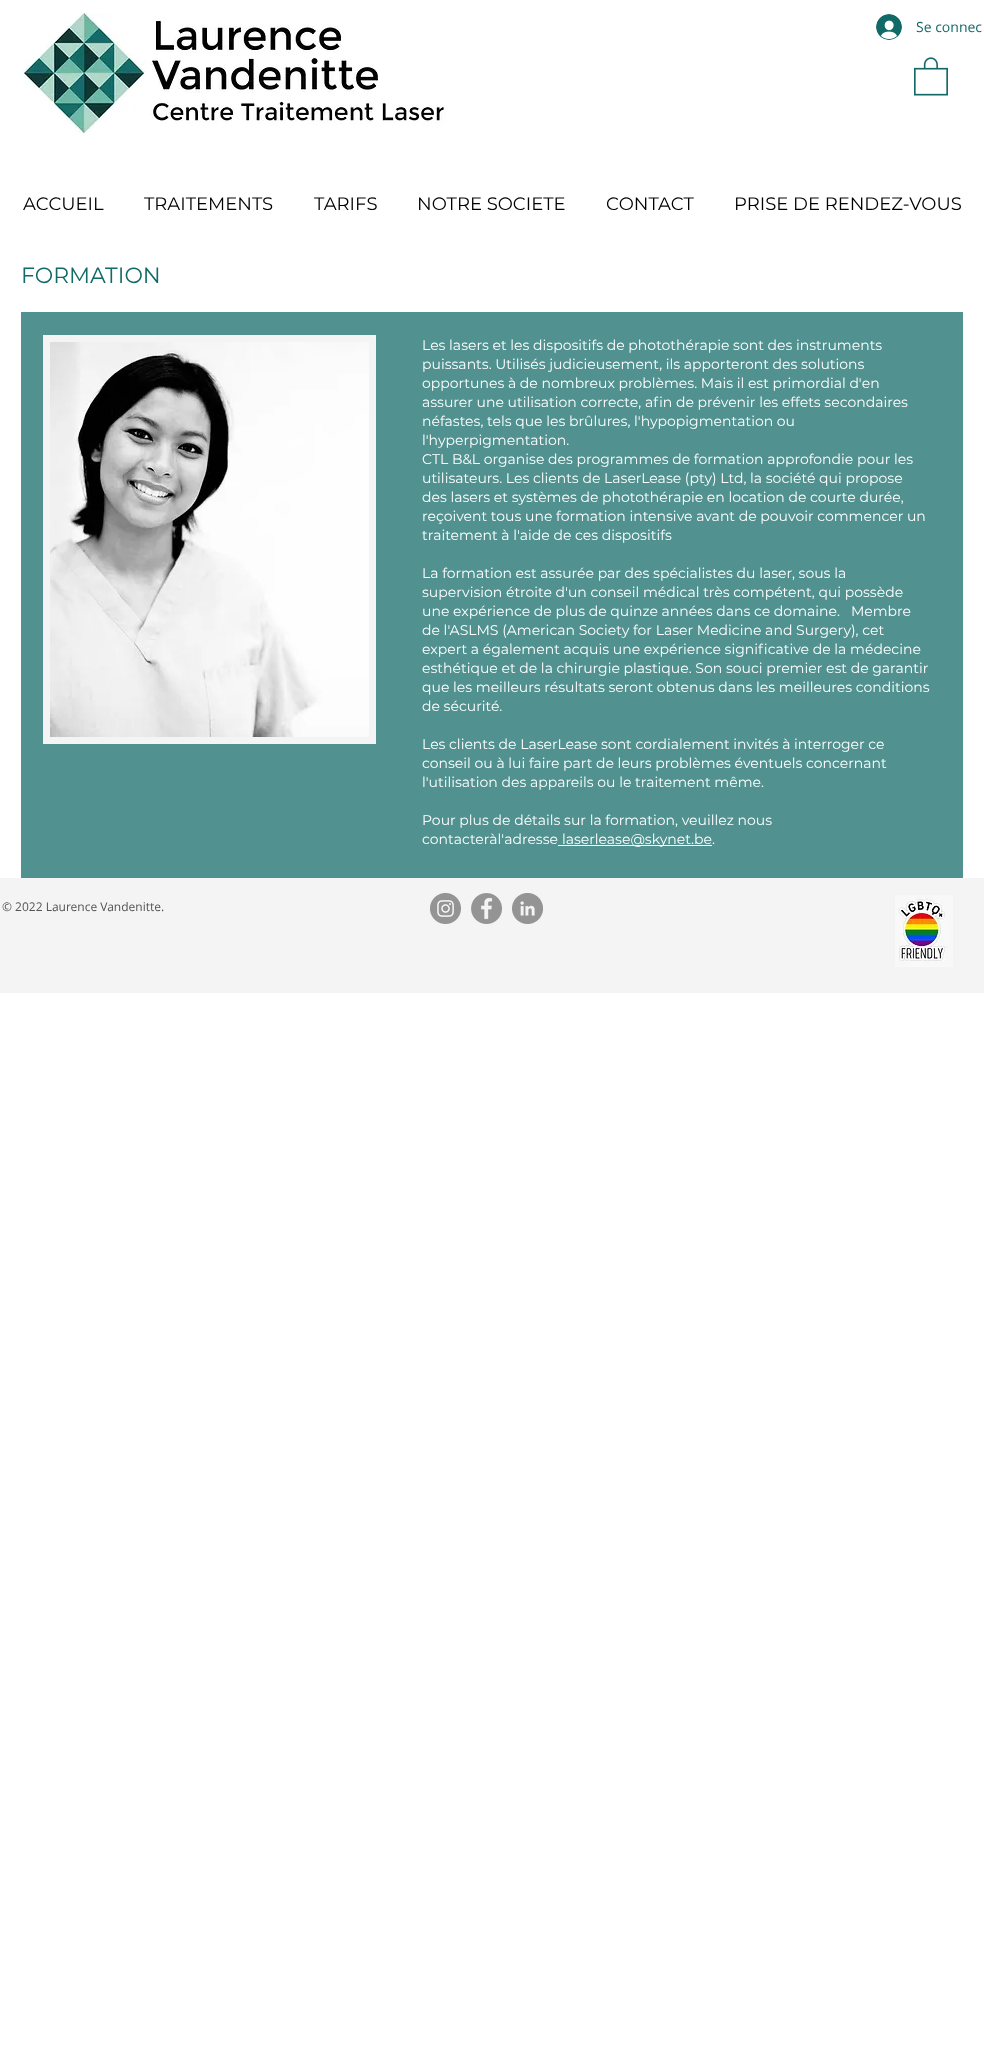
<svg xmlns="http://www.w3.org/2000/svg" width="984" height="2063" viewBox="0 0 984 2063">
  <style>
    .t1 { font: 14px Open Sans; fill: #116a68; }
    .t2 { font: 18px Montserrat; fill: #000; }
    .t3 { font: 22px Montserrat; fill: #116a68; }
    .t4 { font: 14px Montserrat; fill: #fff; }
    .t5 { font: 12px Open Sans; fill: #545454; }
  </style>
  <rect width="100%" height="100%" fill="#fff"/>
  <image x="22" y="13" width="424" height="121" href="images/1.png"/>
  <image x="876" y="14" width="26" height="26" href="images/2.png"/>
  <text x="916" y="32" class="t1">Se connec</text>
  <image x="914" y="57" width="34" height="39" href="images/3.png"/>
  <text x="23" y="210" class="t2">ACCUEIL</text>
  <text x="144" y="210" class="t2">TRAITEMENTS</text>
  <text x="314" y="210" class="t2">TARIFS</text>
  <text x="417" y="210" class="t2">NOTRE SOCIETE</text>
  <text x="606" y="210" class="t2">CONTACT</text>
  <text x="734" y="210" class="t2">PRISE DE RENDEZ-VOUS</text>
  <text x="21" y="283" class="t3">FORMATION</text>
  <rect x="21" y="312" width="942" height="566" fill="#519291"/>
  <rect x="43" y="335" width="333" height="409" fill="#f4f4f4"/>
  <image x="50" y="342" width="319" height="395" href="images/4.png"/>
  <text x="422" y="350" class="t4">Les lasers et les dispositifs de photothérapie sont des instruments</text>
  <text x="422" y="369" class="t4">puissants. Utilisés judicieusement, ils apporteront des solutions</text>
  <text x="422" y="388" class="t4">opportunes à de nombreux problèmes. Mais il est primordial d'en</text>
  <text x="422" y="407" class="t4">assurer une utilisation correcte, afin de prévenir les effets secondaires</text>
  <text x="422" y="426" class="t4">néfastes, tels que les brûlures, l'hypopigmentation ou</text>
  <text x="422" y="445" class="t4">l'hyperpigmentation.</text>
  <text x="422" y="464" class="t4">CTL B&amp;L organise des programmes de formation approfondie pour les</text>
  <text x="422" y="483" class="t4">utilisateurs. Les clients de LaserLease (pty) Ltd, la société qui propose</text>
  <text x="422" y="502" class="t4">des lasers et systèmes de photothérapie en location de courte durée,</text>
  <text x="422" y="521" class="t4">reçoivent tous une formation intensive avant de pouvoir commencer un</text>
  <text x="422" y="540" class="t4">traitement à l'aide de ces dispositifs</text>
  <text x="422" y="578" class="t4">La formation est assurée par des spécialistes du laser, sous la</text>
  <text x="422" y="597" class="t4">supervision étroite d'un conseil médical très compétent, qui possède</text>
  <text x="422" y="616" class="t4" xml:space="preserve">une expérience de plus de quinze années dans ce domaine.   Membre</text>
  <text x="422" y="635" class="t4">de l'ASLMS (American Society for Laser Medicine and Surgery), cet</text>
  <text x="422" y="654" class="t4">expert a également acquis une expérience significative de la médecine</text>
  <text x="422" y="673" class="t4">esthétique et de la chirurgie plastique. Son souci premier est de garantir</text>
  <text x="422" y="692" class="t4">que les meilleurs résultats seront obtenus dans les meilleures conditions</text>
  <text x="422" y="711" class="t4">de sécurité.</text>
  <text x="422" y="749" class="t4">Les clients de LaserLease sont cordialement invités à interroger ce</text>
  <text x="422" y="768" class="t4">conseil ou à lui faire part de leurs problèmes éventuels concernant</text>
  <text x="422" y="787" class="t4">l'utilisation des appareils ou le traitement même.</text>
  <text x="422" y="825" class="t4">Pour plus de détails sur la formation, veuillez nous</text>
  <text x="422" y="844" class="t4">contacteràl'adresse</text>
  <rect x="558" y="845" width="154" height="1" fill="#fff"/>
  <text x="562" y="844" class="t4">laserlease@skynet.be.</text>
  <rect x="0" y="878" width="984" height="115" fill="#f4f4f4"/>
  <text x="2" y="911" class="t5">© 2022 Laurence Vandenitte.</text>
  <image x="430" y="893" width="31" height="31" href="images/5.png"/>
  <image x="471" y="893" width="31" height="31" href="images/6.png"/>
  <image x="512" y="893" width="31" height="31" href="images/7.png"/>
  <image x="895" y="895" width="58" height="72" href="images/8.png"/>
</svg>
